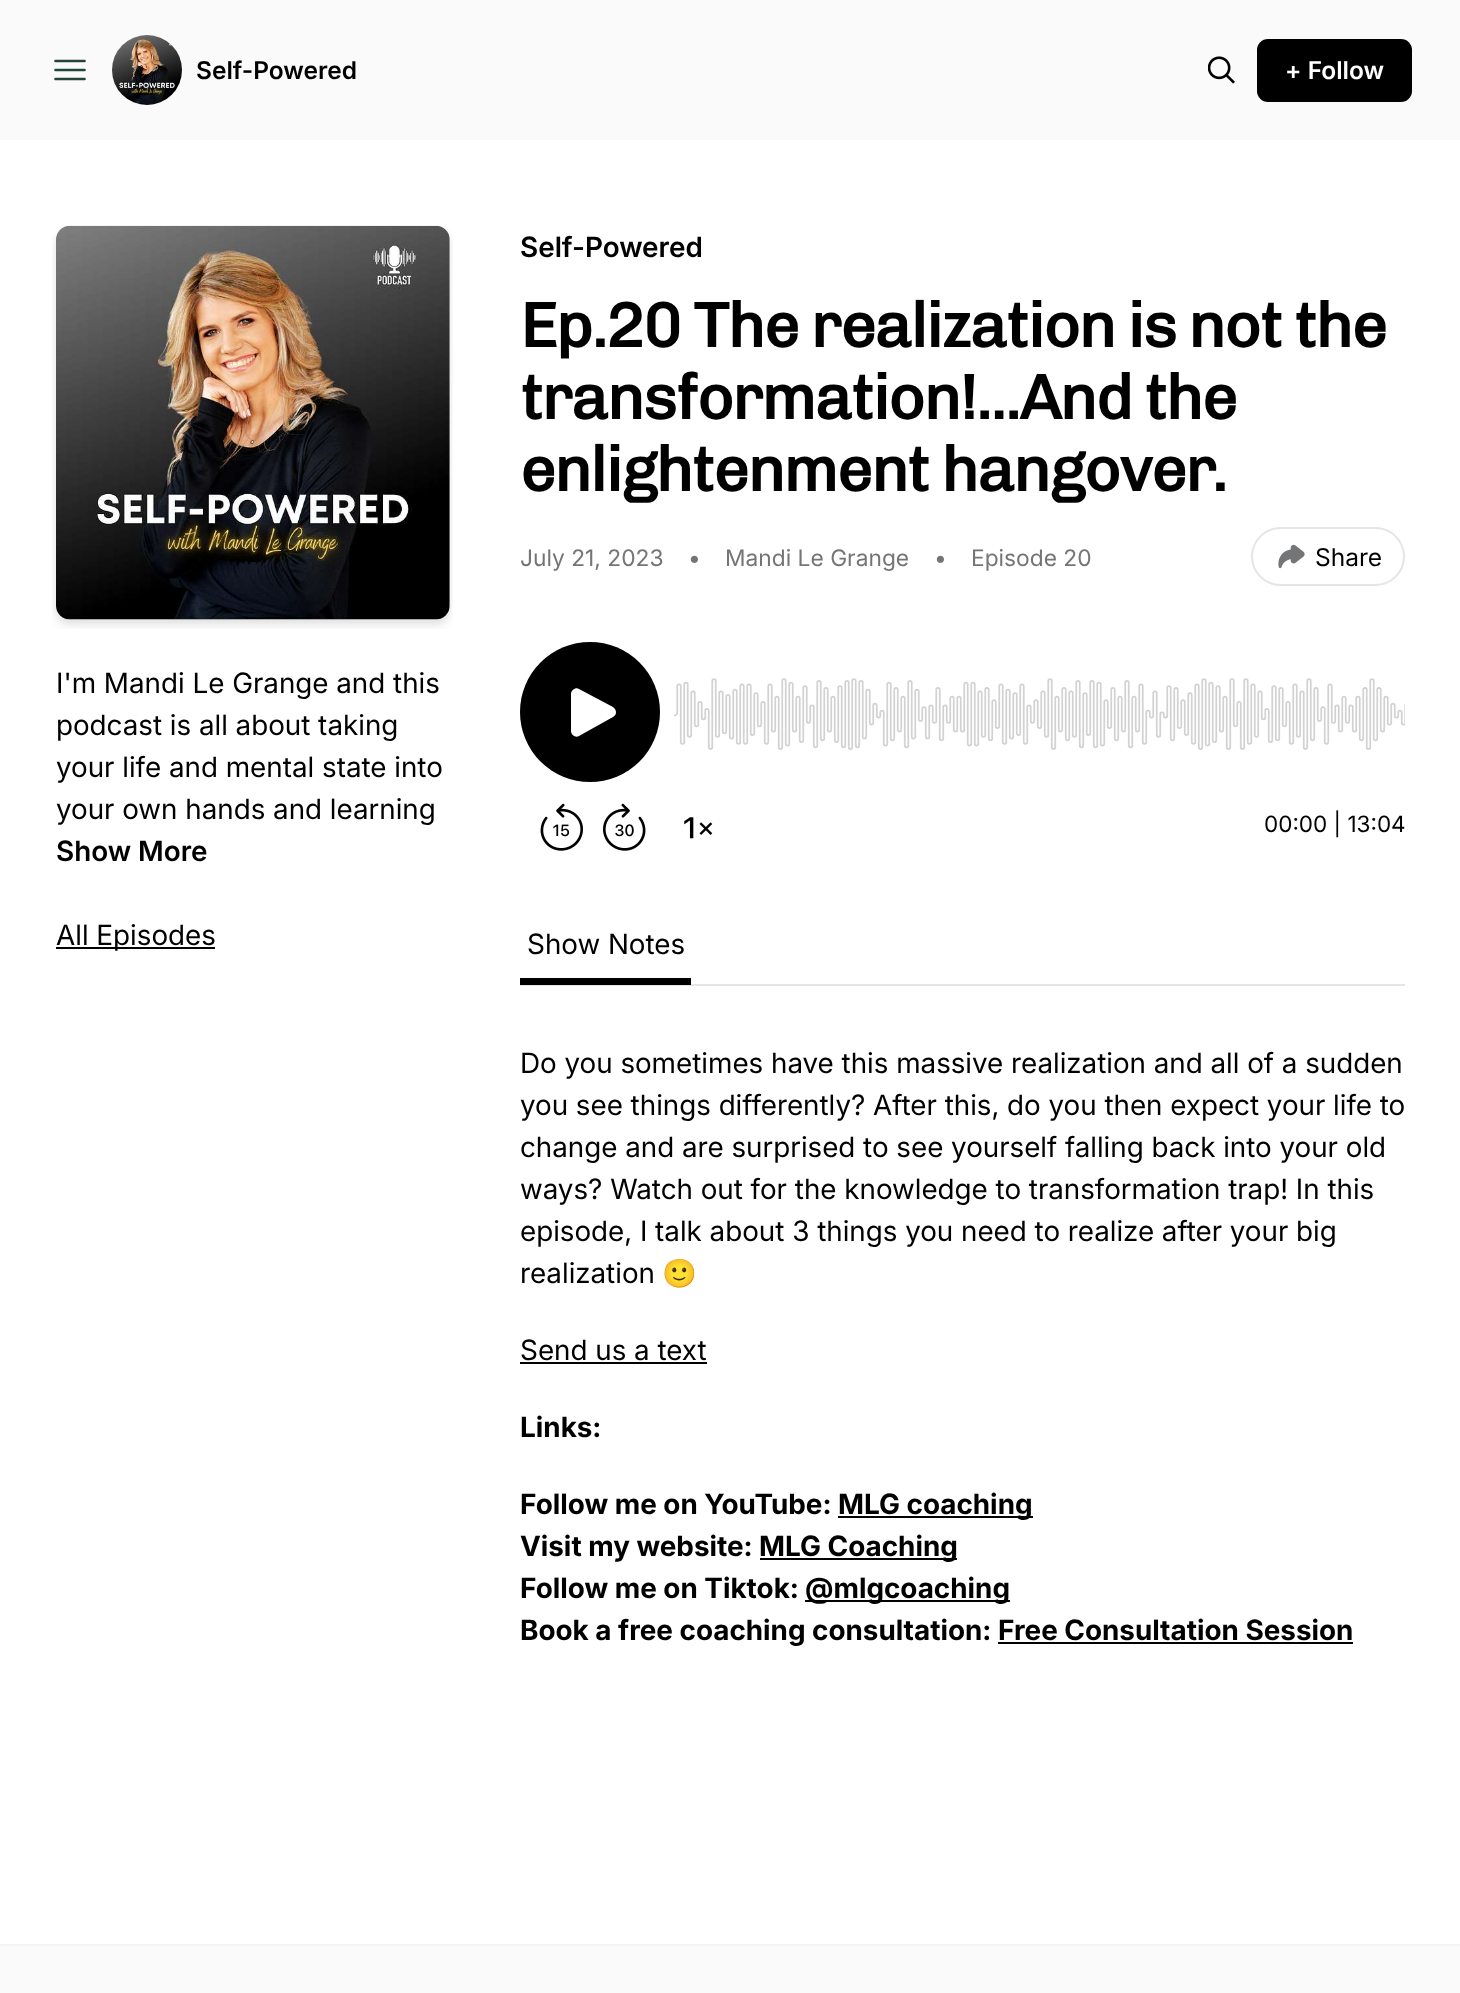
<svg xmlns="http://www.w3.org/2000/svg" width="1460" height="1993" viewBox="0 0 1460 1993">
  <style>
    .t1 { font: 600 24.5px Inter; fill: #000; }
    .t2 { font: 600 24.5px Inter; fill: #fff; }
    .t3 { font: 28px Inter; fill: #000; }
    .t4 { font: 600 28px 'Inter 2'; fill: #000; }
    .t5 { font: bold 63px Chivo; letter-spacing: -1.6px; fill: #000; }
    .t6 { font: 22.75px 'Inter 2'; fill: #747576; }
    .t7 { font: 24.5px 'Inter 2'; fill: #000; }
    .t8 { font: 22.5px 'Inter 2'; fill: #000; }
    .t9 { font: 28px Noto Color Emoji; fill: #000; }
    .t10 { font: bold 28px Inter; fill: #000; }
  </style>
  <rect width="100%" height="100%" fill="#fff"/>
  <rect x="0" y="0" width="1460" height="140" fill="#fafafa"/>
  <path d="M55.5 61H84.5M55.5 70H84.5M55.5 79H84.5" fill="none" stroke="#214538" stroke-width="2.6" stroke-linecap="round" stroke-linejoin="round"/>
  <image x="112" y="35" width="70" height="70" href="images/1.png"/>
  <text x="196" y="79" class="t1">Self-Powered</text>
  <image x="1208" y="56" width="27" height="28" href="images/2.png"/>
  <rect x="1257" y="39" width="155" height="63" rx="11" fill="#000"/>
  <text x="1285" y="79" class="t2">+ Follow</text>
  <image x="52" y="225" width="401" height="404" href="images/3.png"/>
  <text x="56" y="693" class="t3">I'm Mandi Le Grange and this</text>
  <text x="56" y="735" class="t3">podcast is all about taking</text>
  <text x="56" y="777" class="t3">your life and mental state into</text>
  <text x="56" y="819" class="t3">your own hands and learning</text>
  <text x="56" y="861" class="t4">Show More</text>
  <rect x="56" y="947" width="159" height="2" fill="#000"/>
  <text x="56" y="945" class="t3">All Episodes</text>
  <text x="520" y="257" class="t4">Self-Powered</text>
  <text x="520" y="347" class="t5">Ep.20 The realization is not the</text>
  <text x="520" y="419" class="t5">transformation!...And the</text>
  <text x="520" y="491" class="t5">enlightenment hangover.</text>
  <text x="520" y="566" class="t6">July 21, 2023</text>
  <text x="688" y="566" class="t6">•</text>
  <text x="725" y="566" class="t6">Mandi Le Grange</text>
  <text x="934" y="566" class="t6">•</text>
  <text x="971" y="566" class="t6">Episode 20</text>
  <rect x="1252" y="528" width="152" height="57" rx="28.5" fill="none" stroke="#e4e5e6" stroke-width="2"/>
  <image x="1278" y="544" width="27" height="25" href="images/4.png"/>
  <text x="1315" y="566" class="t7">Share</text>
  <image x="540" y="803" width="43" height="48" href="images/5.png"/>
  <image x="603" y="803" width="43" height="48" href="images/6.png"/>
  <image x="684" y="817" width="29" height="22" href="images/7.png"/>
  <circle cx="590" cy="712" r="70" fill="#000"/>
  <path d="M571 694C571 690 576 687 579 689L613 707C617 710 617 715 613 717L579 736C576 738 571 735 571 731Z" fill="#fff" fill-rule="evenodd"/>
  <image x="674" y="678" width="731" height="72" href="images/8.png"/>
  <text x="1264" y="832" class="t8">00:00 | 13:04</text>
  <rect x="520" y="984" width="885" height="2" fill="#e4e5e6"/>
  <rect x="520" y="978" width="171" height="7" fill="#000"/>
  <text x="527" y="954" class="t3">Show Notes</text>
  <text x="520" y="1073" class="t3">Do you sometimes have this massive realization and all of a sudden</text>
  <text x="520" y="1115" class="t3">you see things differently? After this, do you then expect your life to</text>
  <text x="520" y="1157" class="t3">change and are surprised to see yourself falling back into your old</text>
  <text x="520" y="1199" class="t3">ways? Watch out for the knowledge to transformation trap! In this</text>
  <text x="520" y="1241" class="t3">episode, I talk about 3 things you need to realize after your big</text>
  <text x="520" y="1283" class="t3">realization</text>
  <text x="662" y="1283" class="t9">🙂</text>
  <text x="520" y="1360" class="t3">Send us a text</text>
  <rect x="520" y="1362" width="187" height="2" fill="#000"/>
  <text x="520" y="1437" class="t10">Links:</text>
  <text x="520" y="1514" class="t10">Follow me on YouTube:</text>
  <rect x="838" y="1516" width="195" height="2" fill="#000"/>
  <text x="838" y="1514" class="t10">MLG coaching</text>
  <text x="520" y="1556" class="t10">Visit my website:</text>
  <rect x="760" y="1558" width="197" height="2" fill="#000"/>
  <text x="759" y="1556" class="t10">MLG Coaching</text>
  <text x="520" y="1598" class="t10">Follow me on Tiktok:</text>
  <rect x="805" y="1600" width="205" height="2" fill="#000"/>
  <text x="805" y="1598" class="t10">@mlgcoaching</text>
  <text x="520" y="1640" class="t10">Book a free coaching consultation: Free Consultation Session</text>
  <rect x="998" y="1642" width="355" height="2" fill="#000"/>
  <rect x="0" y="1946" width="1460" height="47" fill="#fafafa"/>
  <rect x="0" y="1944" width="1460" height="2" fill="#f4f4f4"/>
</svg>
